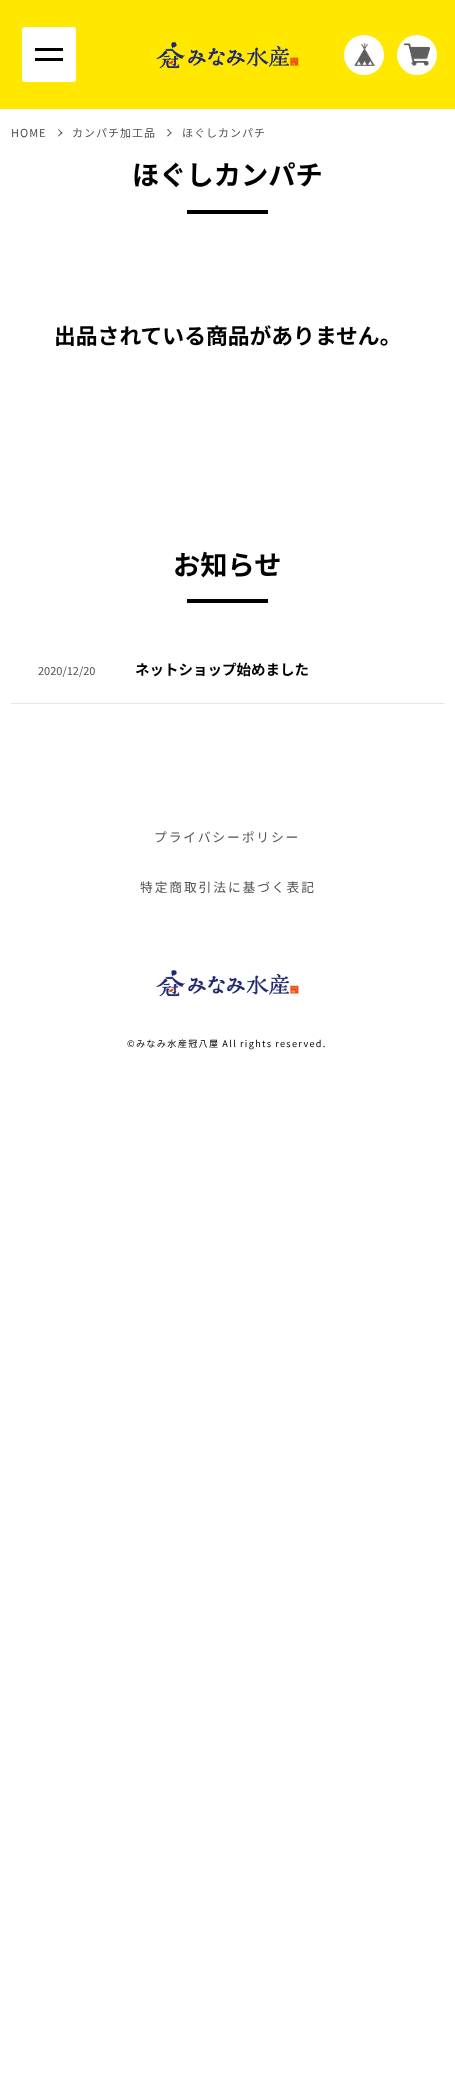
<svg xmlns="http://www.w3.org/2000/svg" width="455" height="2097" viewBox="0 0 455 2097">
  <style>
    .t1 { font: 11px Noto Sans JP; letter-spacing: 1px; fill: #515151; }
    .t2 { font: bold 27.25px Noto Sans JP; fill: #000; }
    .t3 { font: bold 21.8px Noto Sans JP; fill: #000; }
    .t4 { font: 11px Noto Sans JP; fill: #515151; }
    .t5 { font: bold 14.5px Noto Sans JP; fill: #000; }
    .t6 { font: 12.75px Noto Sans JP; letter-spacing: 1.9px; fill: #515151; }
    .t7 { font: 9.1px Noto Sans JP; letter-spacing: 1.35px; fill: #000; }
  </style>
  <rect width="100%" height="100%" fill="#fff"/>
  <rect x="0" y="0" width="455" height="109" fill="#ffe700"/>
  <rect x="22" y="27" width="54" height="55" rx="3" fill="#fff"/>
  <rect x="35" y="48" width="28" height="3" fill="#000"/>
  <rect x="35" y="58" width="28" height="3" fill="#000"/>
  <image x="156" y="42" width="143" height="27" href="images/1.png"/>
  <circle cx="364" cy="55" r="20" fill="#fff"/>
  <image x="354" y="43" width="21" height="23" href="images/2.png"/>
  <circle cx="417" cy="55" r="20" fill="#fff"/>
  <image x="404" y="43" width="26" height="23" href="images/3.png"/>
  <text x="11" y="137" class="t1">HOME</text>
  <path d="M58.5 129L62.5 133L61.5 133.5L58 129.5Z" fill="#515151"/>
  <path d="M61.5 132L62.5 133L58.5 136.5L58 136Z" fill="#515151"/>
  <text x="72" y="137" class="t1">カンパチ加工品</text>
  <path d="M168 129L171.5 133L171 133.5L167 129.5Z" fill="#515151"/>
  <path d="M171 132L171.5 133L168 136.5L167 136Z" fill="#515151"/>
  <text x="182" y="137" class="t1">ほぐしカンパチ</text>
  <text x="132" y="185" class="t2">ほぐしカンパチ</text>
  <rect x="187" y="210" width="81" height="4" fill="#000"/>
  <text x="54" y="344" class="t3">出品されている商品がありません。</text>
  <text x="173" y="575" class="t2">お知らせ</text>
  <rect x="187" y="599" width="81" height="4" fill="#000"/>
  <rect x="11" y="703" width="433" height="1" fill="#e5e5e5"/>
  <text x="38" y="675" class="t4">2020/12/20</text>
  <text x="135" y="675" class="t5">ネットショップ始めました</text>
  <text x="154" y="842" class="t6">プライバシーポリシー</text>
  <text x="140" y="892" class="t6">特定商取引法に基づく表記</text>
  <image x="156" y="970" width="143" height="27" href="images/4.png"/>
  <text x="127" y="1047" word-spacing="-0.5" class="t7">©︎みなみ水産冠八屋 All rights reserved.</text>
</svg>
